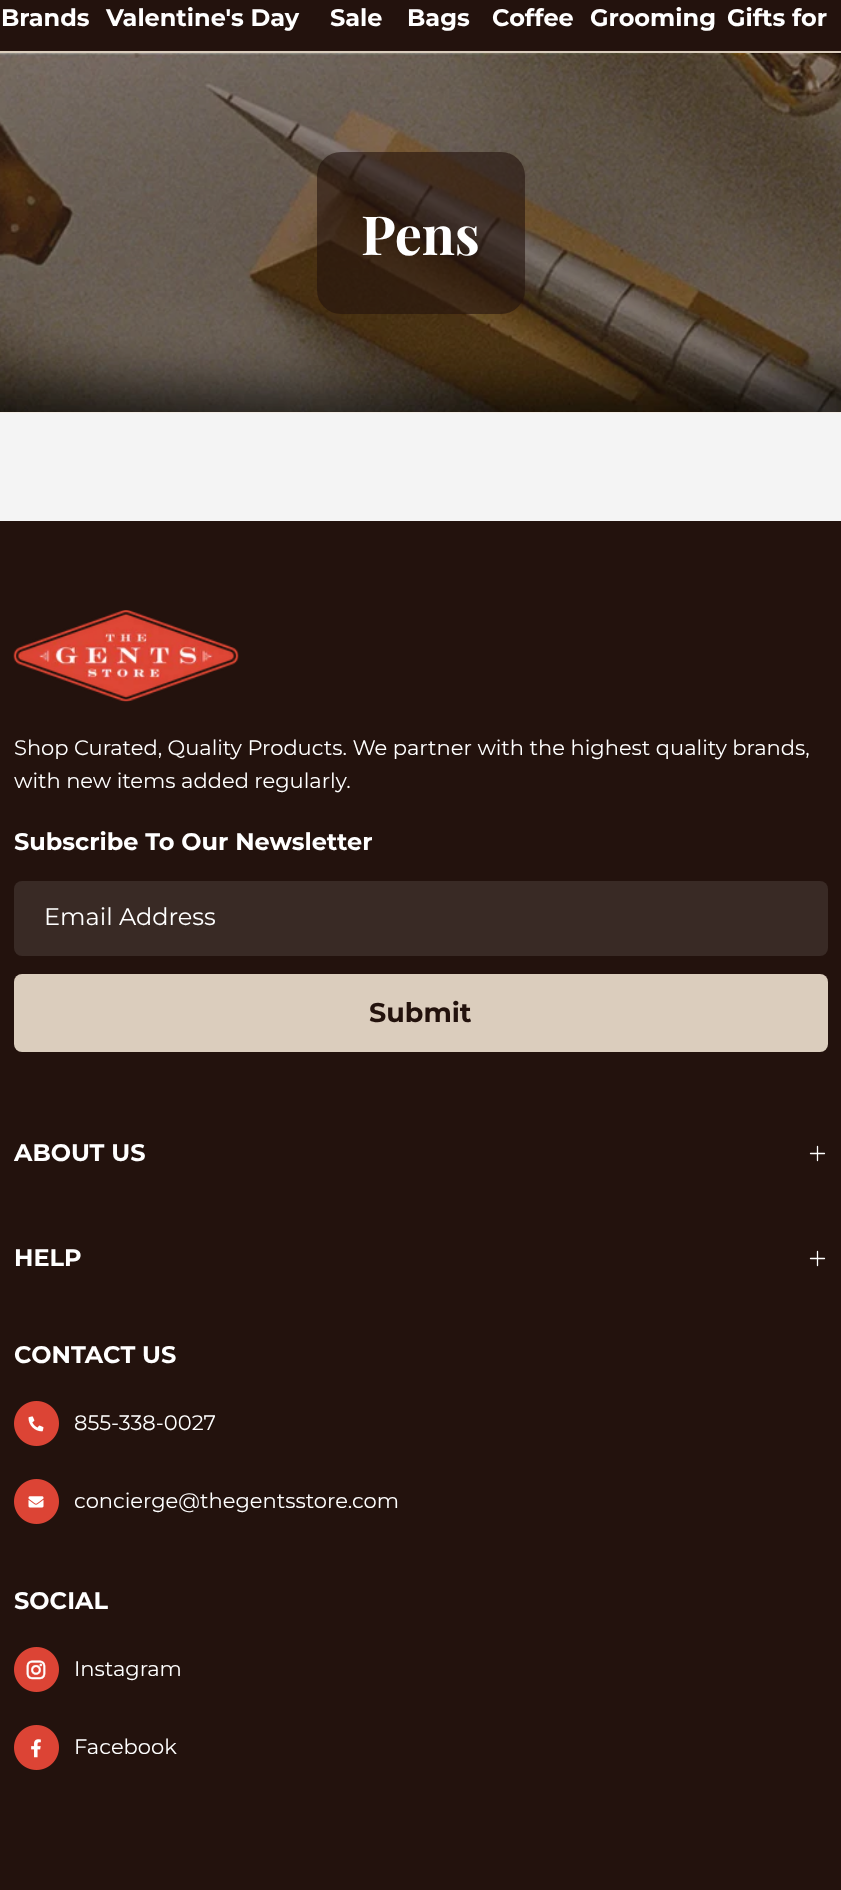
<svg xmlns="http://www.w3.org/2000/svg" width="841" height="1890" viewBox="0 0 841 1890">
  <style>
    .t1 { font: bold 24px Montserrat; fill: #fff; }
    .t2 { font: bold 54px Playfair Display; fill: #fff; }
    .t3 { font: 21px Montserrat; fill: #fff; }
    .t4 { font: 24px Montserrat; fill: #fff; }
    .t5 { font: bold 27px Montserrat; fill: #23120d; }
  </style>
  <rect width="100%" height="100%" fill="#f4f4f4"/>
  <rect x="0" y="51" width="841" height="2" fill="#dbcdbd"/>
  <rect x="0" y="0" width="841" height="51" fill="#23120d"/>
  <text x="1" y="26" class="t1">Brands</text>
  <text x="106" y="26" class="t1">Valentine's Day</text>
  <text x="330" y="26" class="t1">Sale</text>
  <text x="407" y="26" class="t1">Bags</text>
  <text x="492" y="26" class="t1">Coffee</text>
  <text x="590" y="26" class="t1">Grooming</text>
  <text x="727" y="26" class="t1">Gifts for</text>
  <rect x="0" y="412" width="841" height="1" fill="#f4ede6"/>
  <image x="0" y="53" width="841" height="359" href="images/1.png"/>
  <rect x="317" y="152" width="208" height="162" rx="24" fill="#23120d99"/>
  <text x="361" y="255" class="t2">Pens</text>
  <rect x="0" y="521" width="841" height="1369" fill="#23120d"/>
  <image x="13" y="610" width="226" height="92" href="images/2.png"/>
  <text x="14" y="755" class="t3">Shop Curated, Quality Products. We partner with the highest quality brands,</text>
  <text x="14" y="788" class="t3">with new items added regularly.</text>
  <text x="14" y="850" class="t1">Subscribe To Our Newsletter</text>
  <rect x="14" y="881" width="814" height="75" rx="8" fill="#392a25"/>
  <text x="44" y="925" class="t4">Email Address</text>
  <rect x="14" y="974" width="814" height="78" rx="8" fill="#dbcdbd"/>
  <text x="369" y="1022" class="t5">Submit</text>
  <text x="14" y="1161" class="t1">ABOUT US</text>
  <path d="M810.5 1153.5H824.5M817.5 1146.5V1160.5" fill="none" stroke="#fff" stroke-width="1.3" stroke-linecap="round" stroke-linejoin="round"/>
  <text x="14" y="1266" class="t1">HELP</text>
  <path d="M810.5 1258.5H824.5M817.5 1251.5V1265.5" fill="none" stroke="#fff" stroke-width="1.3" stroke-linecap="round" stroke-linejoin="round"/>
  <text x="14" y="1363" class="t1">CONTACT US</text>
  <image x="14" y="1401" width="45" height="45" href="images/3.png"/>
  <text x="74" y="1430" class="t3">855-338-0027</text>
  <image x="14" y="1479" width="45" height="45" href="images/4.png"/>
  <text x="74" y="1508" class="t3">concierge@thegentsstore.com</text>
  <text x="14" y="1609" class="t1">SOCIAL</text>
  <image x="14" y="1647" width="45" height="45" href="images/5.png"/>
  <text x="74" y="1676" class="t3">Instagram</text>
  <image x="14" y="1725" width="45" height="45" href="images/6.png"/>
  <text x="74" y="1754" class="t3">Facebook</text>
</svg>
